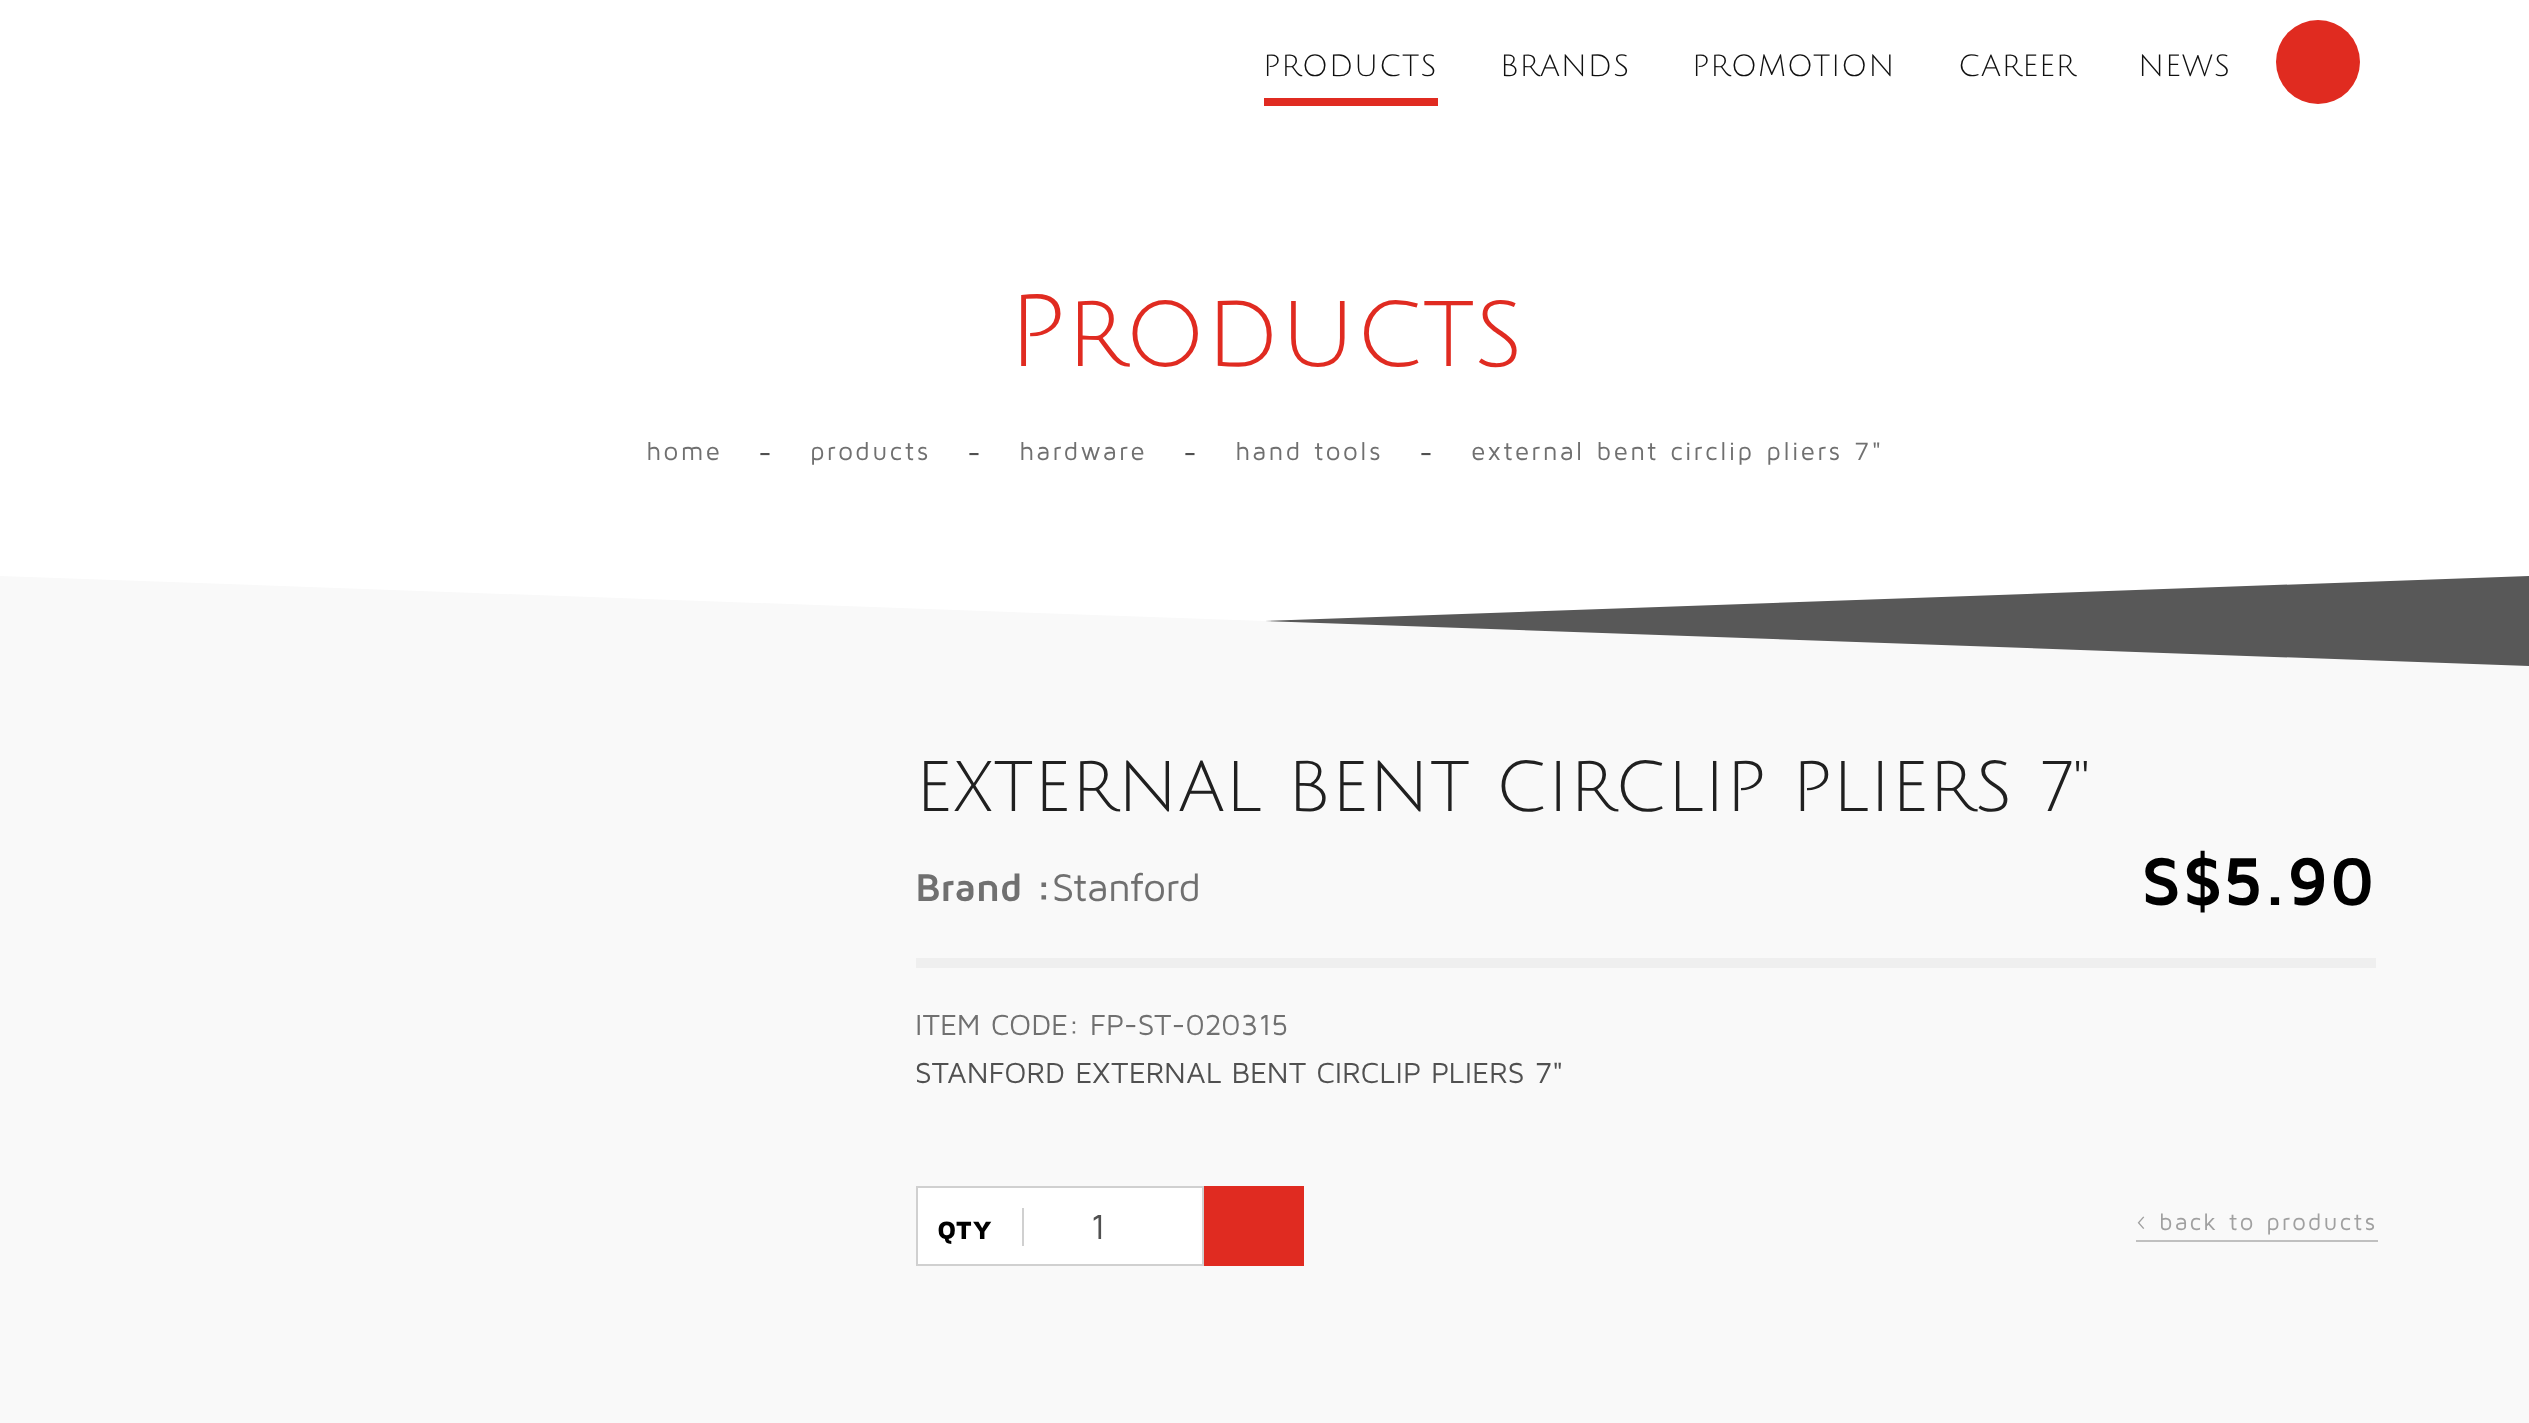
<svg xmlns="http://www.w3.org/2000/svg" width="2529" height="1423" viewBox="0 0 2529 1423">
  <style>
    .t1 { font: 30px Julius Sans One; letter-spacing: 0.75px; fill: #101010; }
    .t2 { font: 100px Julius Sans One; fill: #e02b21; }
    .t3 { font: 26px Maven Pro; letter-spacing: 2.6px; fill: #707070; }
    .t4 { font: 30px Maven Pro; fill: #505050; }
    .t5 { font: 70px Julius Sans One; fill: #202020; }
    .t6 { font: bold 40px Maven Pro; fill: #707070; }
    .t7 { font: 40px Maven Pro; fill: #707070; }
    .t8 { font: bold 70px Maven Pro; fill: #000; }
    .t9 { font: 30px Maven Pro; fill: #707070; }
    .t10 { font: 900 26px Maven Pro; fill: #000; }
    .t11 { font: 36px Maven Pro; fill: #505050; }
    .t12 { font: 34px Julius Sans One; letter-spacing: 2.4px; fill: #a0a0a0; }
    .t13 { font: 24px Maven Pro; letter-spacing: 2.4px; fill: #a0a0a0; }
  </style>
  <rect width="100%" height="100%" fill="#fff"/>
  <rect x="1264" y="98" width="174" height="8" fill="#e02b21"/>
  <text x="1263" y="76" class="t1">PRODUCTS</text>
  <text x="1500" y="76" class="t1">BRANDS</text>
  <text x="1692" y="76" class="t1">PROMOTION</text>
  <text x="1958" y="76" class="t1">CAREER</text>
  <text x="2138" y="76" class="t1">NEWS</text>
  <circle cx="2318" cy="62" r="42" fill="#e02b20"/>
  <text x="1008" y="366" class="t2">Products</text>
  <text x="646" y="460" class="t3">home</text>
  <text x="758" y="463" class="t4">-</text>
  <text x="810" y="460" class="t3">products</text>
  <text x="967" y="463" class="t4">-</text>
  <text x="1019" y="460" class="t3">hardware</text>
  <text x="1183" y="463" class="t4">-</text>
  <text x="1235" y="460" class="t3">hand tools</text>
  <text x="1419" y="463" class="t4">-</text>
  <text x="1471" y="460" class="t3">external bent circlip pliers 7"</text>
  <path d="M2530 702H-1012L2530 576Z" fill="#585858"/>
  <path d="M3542 702H0V576Z" fill="#f9f9f9"/>
  <rect x="0" y="702" width="2529" height="721" fill="#f9f9f9"/>
  <text x="915" y="811" class="t5">EXTERNAL BENT CIRCLIP PLIERS 7"</text>
  <text x="915" y="901" class="t6">Brand :</text>
  <text x="1052" y="901" class="t7">Stanford</text>
  <text x="2141" y="905" class="t8">S$5.90</text>
  <rect x="916" y="958" width="1460" height="10" fill="#efefef"/>
  <text x="915" y="1035" class="t9">ITEM CODE: FP-ST-020315</text>
  <text x="915" y="1083" class="t4">STANFORD EXTERNAL BENT CIRCLIP PLIERS 7"</text>
  <rect x="917" y="1187" width="286" height="78" fill="#fff" stroke="#d0d0d0" stroke-width="2"/>
  <text x="937" y="1239" class="t10">QTY</text>
  <rect x="1022" y="1208" width="2" height="38" fill="#d0d0d0"/>
  <text x="1090" y="1239" class="t11">1</text>
  <rect x="1204" y="1186" width="100" height="80" fill="#e02b21"/>
  <rect x="2136" y="1240" width="242" height="2" fill="#c0c0c0"/>
  <text x="2136" y="1234" class="t12">‹</text>
  <text x="2159" y="1230" class="t13">back to products</text>
</svg>
